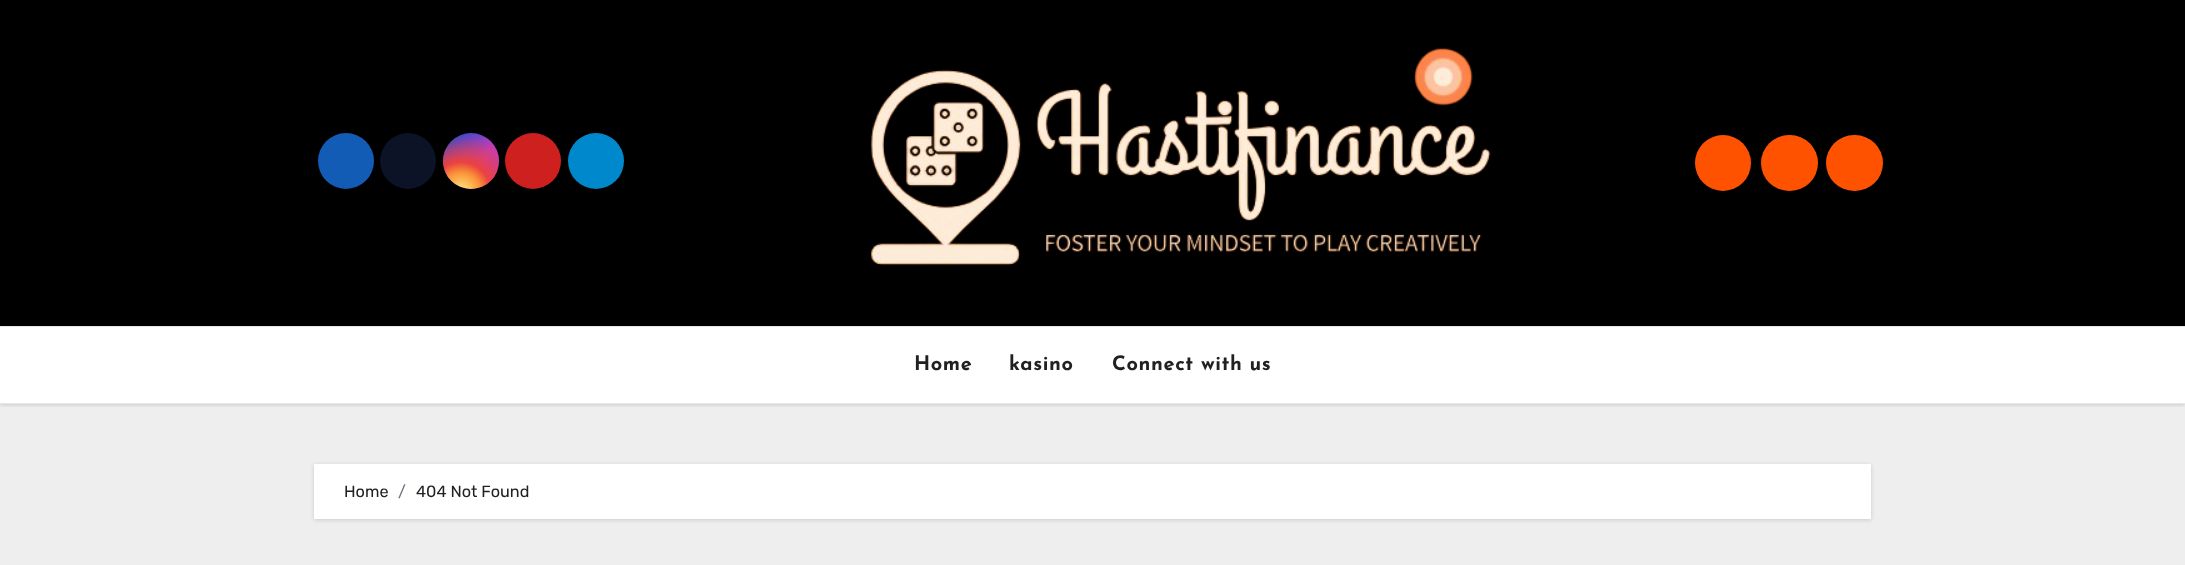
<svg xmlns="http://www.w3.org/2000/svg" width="2185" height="565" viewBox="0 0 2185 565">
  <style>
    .t1 { font: bold 20px Josefin Sans; letter-spacing: 0.6px; fill: #212121; }
    .t2 { font: 300 16.25px Rubik; fill: #212121; }
    .t3 { font: 300 16.25px Rubik; fill: #6c757d; }
  </style>
  <defs>
    <linearGradient id="g1" gradientUnits="userSpaceOnUse" x1="443" y1="133" x2="499" y2="189"><stop offset="0.12" stop-color="#234bd7"/><stop offset="0.58" stop-color="#c33cbe"/></linearGradient>
    <radialGradient id="g2" gradientUnits="userSpaceOnUse" cx="461" cy="192" r="71"><stop offset="0" stop-color="#ffe17d"/><stop offset="0.1" stop-color="#ffcd69"/><stop offset="0.28" stop-color="#fa9137"/><stop offset="0.42" stop-color="#eb4141"/><stop offset="0.82" stop-color="#eb4141" stop-opacity="0"/></radialGradient>
    <clipPath id="clip1"><rect x="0" y="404" width="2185" height="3"/></clipPath>
  </defs>
  <rect width="100%" height="100%" fill="#eee"/>
  <rect x="0" y="327" width="2185" height="76" fill="#fff"/>
  <rect x="0" y="0" width="2185" height="326" fill="#000"/>
  <circle cx="346" cy="161" r="28" fill="#135cb6"/>
  <circle cx="408" cy="161" r="28" fill="#0c1326"/>
  <circle cx="471" cy="161" r="28" fill="url(#g1)"/>
  <circle cx="471" cy="161" r="28" fill="url(#g2)"/>
  <circle cx="533" cy="161" r="28" fill="#cd201f"/>
  <circle cx="596" cy="161" r="28" fill="#08c"/>
  <image x="871" y="48" width="620" height="218" href="images/1.png"/>
  <circle cx="1723" cy="163" r="28" fill="#ff5200"/>
  <rect x="1761" y="135" width="57" height="56" rx="28" fill="#ff5200"/>
  <rect x="1826" y="135" width="57" height="56" rx="28" fill="#ff5200"/>
  <g clip-path="url(#clip1)">
    <rect x="0" y="328" width="2185" height="77" fill="#00000026" filter="blur(2px)"/>
  </g>
  <rect x="0" y="326" width="2185" height="1" fill="#e2e8f0"/>
  <rect x="0" y="403" width="2185" height="1" fill="#e2e8f0"/>
  <text x="914" y="370" class="t1">Home</text>
  <text x="1009" y="370" class="t1">kasino</text>
  <text x="1112" y="370" class="t1">Connect with us</text>
  <rect x="314" y="465" width="1557" height="55" fill="#00000026" filter="blur(2px)"/>
  <rect x="314" y="464" width="1557" height="55" fill="#fff"/>
  <text x="344" y="497" class="t2">Home</text>
  <text x="398" y="497" class="t3">/</text>
  <text x="416" y="497" class="t2">404 Not Found</text>
</svg>
